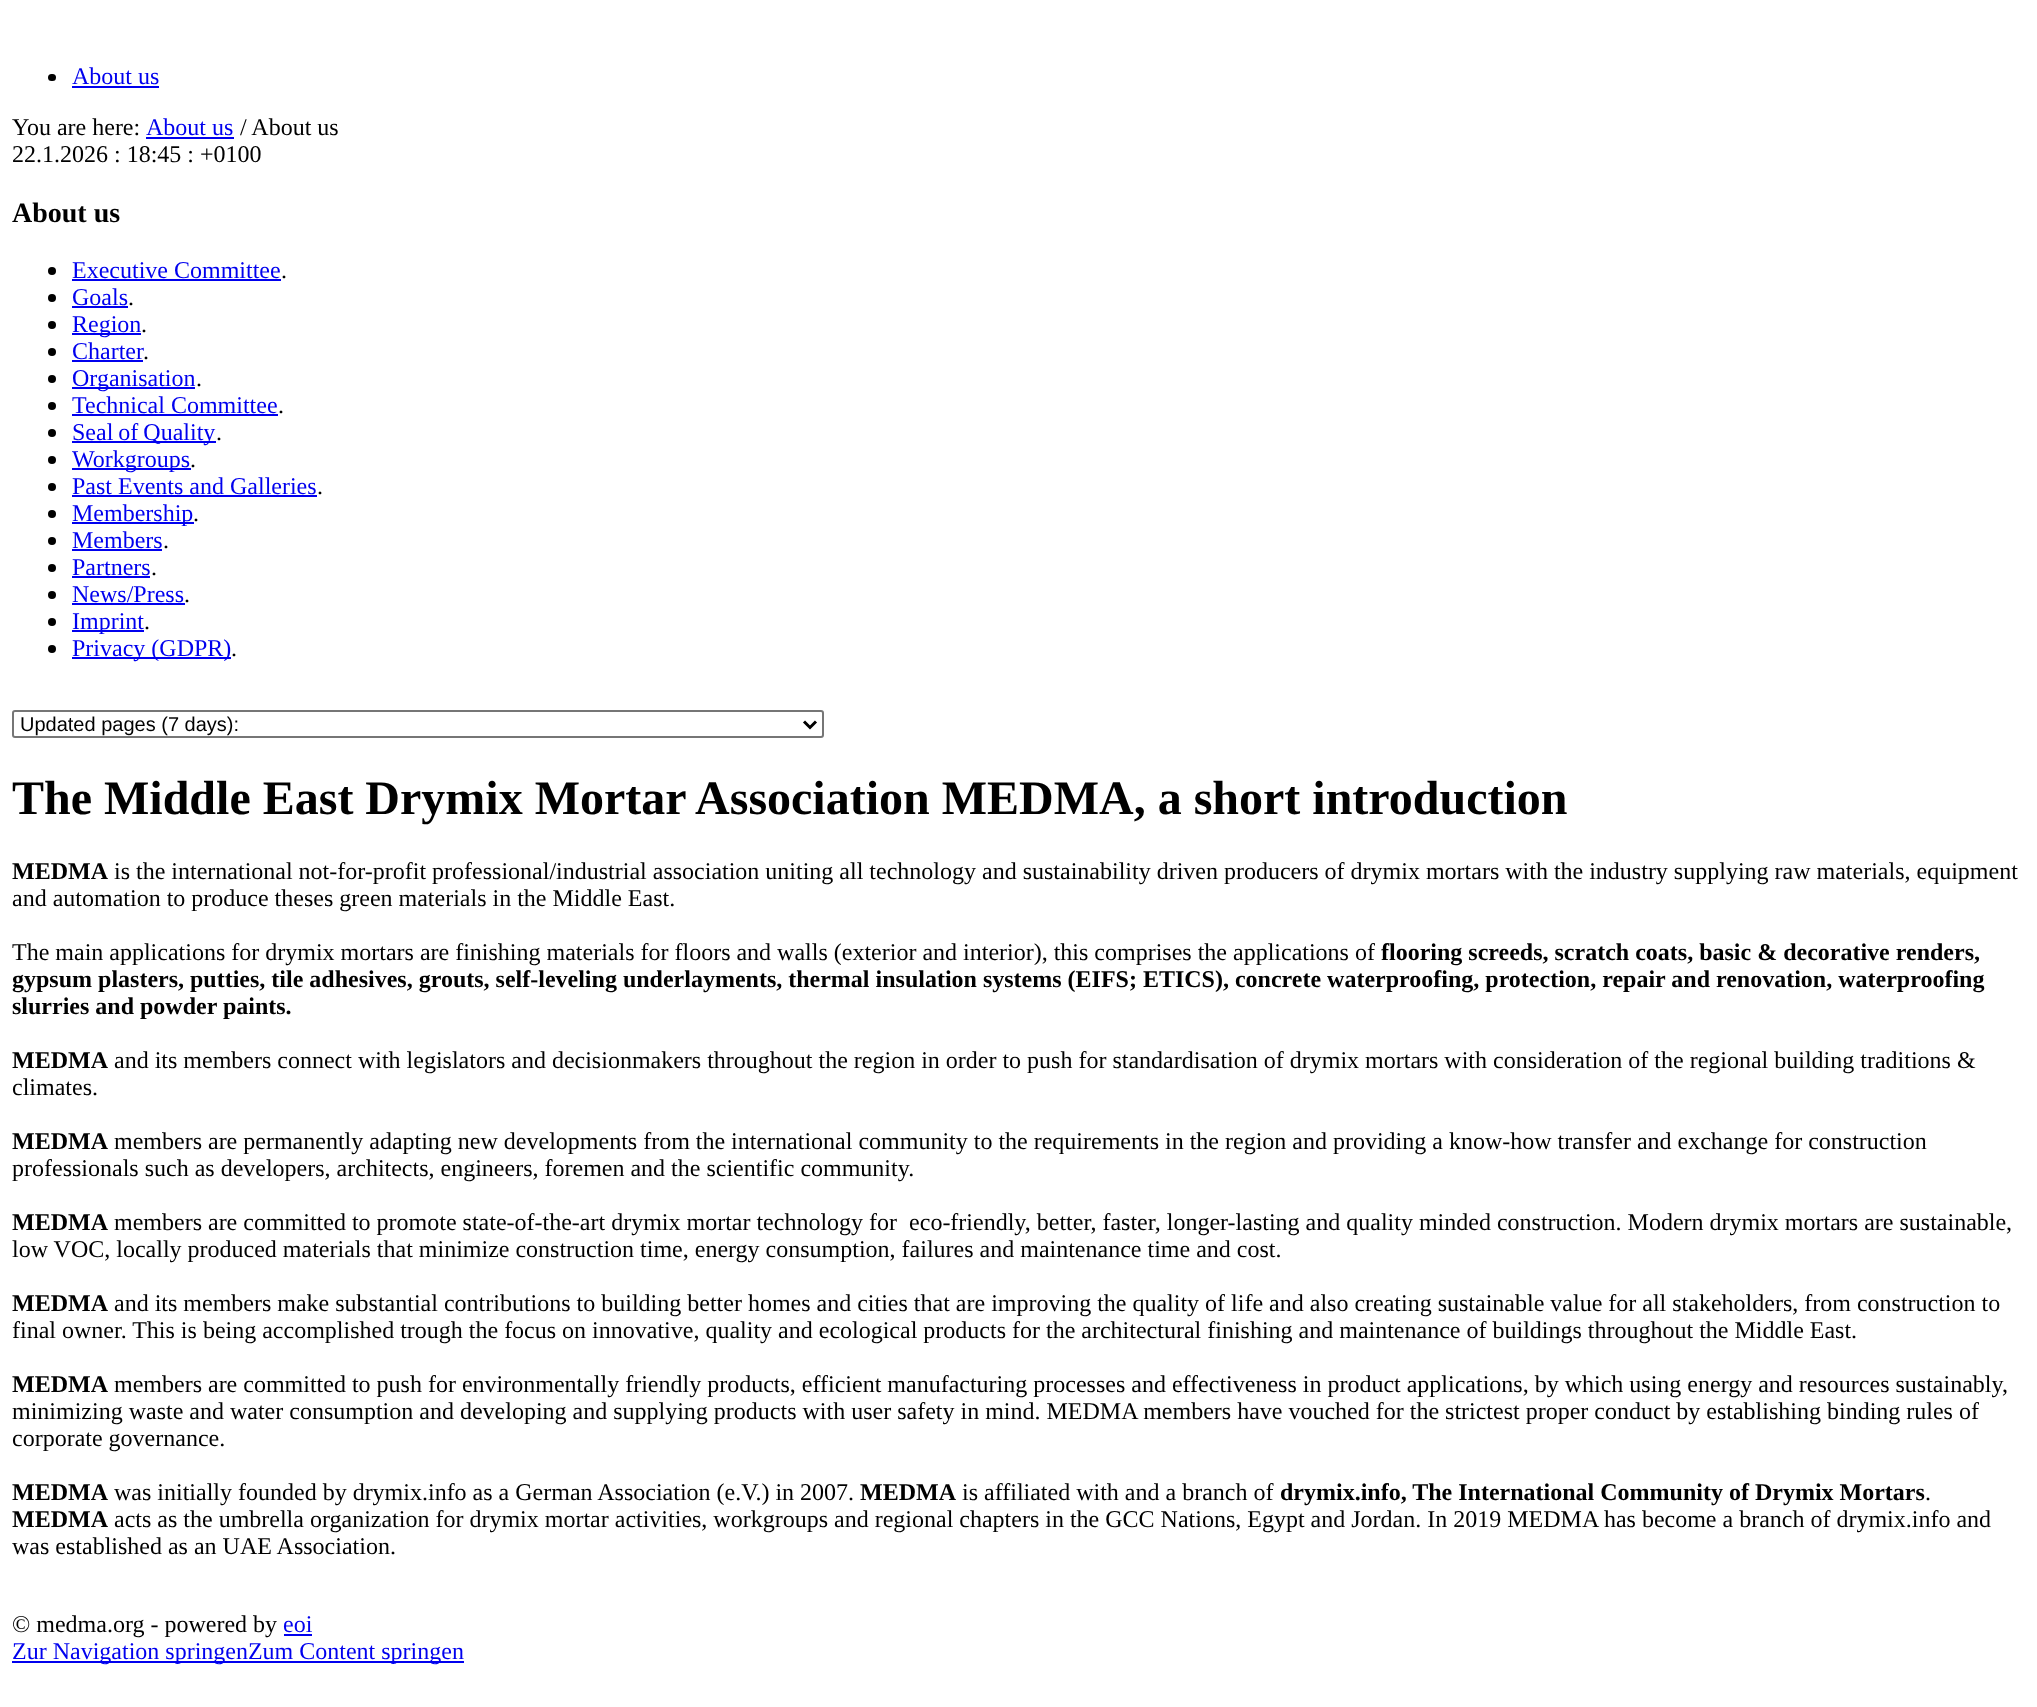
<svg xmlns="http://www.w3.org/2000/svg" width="2037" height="1707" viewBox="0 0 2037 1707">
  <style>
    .t1 { font: 24px Liberation Serif; fill: #00e; }
    .t2 { font: 24px Liberation Serif; fill: #000; }
    .t3 { font: bold 28px Liberation Serif; fill: #000; }
    .t4 { font: 20px Liberation Sans; fill: #000; }
    .t5 { font: bold 48px Liberation Serif; fill: #000; }
    .t6 { font: bold 24px Liberation Serif; fill: #000; }
  </style>
  <rect width="100%" height="100%" fill="#fff"/>
  <rect x="48" y="74" width="8" height="7" rx="3.5" fill="#000"/>
  <text x="72" y="84" class="t1">About us</text>
  <rect x="72" y="86" width="87" height="2" fill="#00e"/>
  <text x="12" y="135" class="t2">You are here:</text>
  <text x="146" y="135" class="t1">About us</text>
  <rect x="146" y="137" width="88" height="2" fill="#00e"/>
  <text x="240" y="135" class="t2">/ About us</text>
  <text x="12" y="162" class="t2">22.1.2026 : 18:45 : +0100</text>
  <text x="12" y="222" class="t3">About us</text>
  <circle cx="52" cy="271" r="4" fill="#000"/>
  <text x="72" y="278" class="t1">Executive Committee</text>
  <rect x="72" y="279" width="209" height="2" fill="#00e"/>
  <text x="281" y="278" class="t2">.</text>
  <circle cx="52" cy="298" r="4" fill="#000"/>
  <text x="72" y="305" class="t1">Goals</text>
  <rect x="72" y="306" width="56" height="2" fill="#00e"/>
  <text x="128" y="305" class="t2">.</text>
  <circle cx="52" cy="325" r="4" fill="#000"/>
  <rect x="72" y="333" width="69" height="2" fill="#00e"/>
  <text x="72" y="332" class="t1">Region</text>
  <text x="141" y="332" class="t2">.</text>
  <circle cx="52" cy="352" r="4" fill="#000"/>
  <text x="72" y="359" class="t1">Charter</text>
  <rect x="72" y="360" width="71" height="2" fill="#00e"/>
  <text x="143" y="359" class="t2">.</text>
  <circle cx="52" cy="379" r="4" fill="#000"/>
  <rect x="72" y="387" width="123" height="2" fill="#00e"/>
  <text x="72" y="386" class="t1">Organisation</text>
  <text x="196" y="386" class="t2">.</text>
  <circle cx="52" cy="406" r="4" fill="#000"/>
  <text x="72" y="413" class="t1">Technical Committee</text>
  <rect x="72" y="414" width="206" height="2" fill="#00e"/>
  <text x="278" y="413" class="t2">.</text>
  <circle cx="52" cy="433" r="4" fill="#000"/>
  <rect x="72" y="441" width="144" height="2" fill="#00e"/>
  <text x="72" y="440" word-spacing="-1" class="t1">Seal of Quality</text>
  <text x="216" y="440" class="t2">.</text>
  <circle cx="52" cy="460" r="4" fill="#000"/>
  <rect x="72" y="468" width="119" height="2" fill="#00e"/>
  <text x="72" y="467" class="t1">Workgroups</text>
  <text x="190" y="467" class="t2">.</text>
  <circle cx="52" cy="487" r="4" fill="#000"/>
  <text x="72" y="494" class="t1">Past Events and Galleries</text>
  <rect x="72" y="495" width="245" height="2" fill="#00e"/>
  <text x="317" y="494" class="t2">.</text>
  <circle cx="52" cy="514" r="4" fill="#000"/>
  <rect x="72" y="522" width="122" height="2" fill="#00e"/>
  <text x="72" y="521" class="t1">Membership</text>
  <text x="193" y="521" class="t2">.</text>
  <circle cx="52" cy="541" r="4" fill="#000"/>
  <text x="72" y="548" class="t1">Members</text>
  <rect x="72" y="549" width="90" height="2" fill="#00e"/>
  <text x="163" y="548" class="t2">.</text>
  <circle cx="52" cy="568" r="4" fill="#000"/>
  <text x="72" y="575" class="t1">Partners</text>
  <rect x="72" y="576" width="78" height="2" fill="#00e"/>
  <text x="151" y="575" class="t2">.</text>
  <circle cx="52" cy="595" r="4" fill="#000"/>
  <text x="72" y="602" class="t1">News/Press</text>
  <rect x="72" y="603" width="113" height="2" fill="#00e"/>
  <text x="184" y="602" class="t2">.</text>
  <circle cx="52" cy="622" r="4" fill="#000"/>
  <rect x="72" y="630" width="72" height="2" fill="#00e"/>
  <text x="72" y="629" class="t1">Imprint</text>
  <text x="144" y="629" class="t2">.</text>
  <circle cx="52" cy="649" r="4" fill="#000"/>
  <rect x="72" y="657" width="159" height="2" fill="#00e"/>
  <text x="72" y="656" class="t1">Privacy (GDPR)</text>
  <text x="231" y="656" class="t2">.</text>
  <rect x="13" y="711" width="810" height="26" rx="2" fill="none" stroke="#767676" stroke-width="2"/>
  <path d="M804 721.5L810 727.5L816 721.5" fill="none" stroke="#000" stroke-width="3"/>
  <text x="20" y="731" class="t4">Updated pages (7 days):</text>
  <text x="12" y="814" class="t5">The Middle East Drymix Mortar Association MEDMA, a short introduction</text>
  <text x="12" y="879" class="t6">MEDMA</text>
  <text x="114" y="879" class="t2">is the international not-for-profit professional/industrial association uniting all technology and sustainability driven producers of drymix mortars with the industry supplying raw materials, equipment</text>
  <text x="12" y="906" class="t2">and automation to produce theses green materials in the Middle East.</text>
  <text x="12" y="960" class="t2">The main applications for drymix mortars are finishing materials for floors and walls (exterior and interior), this comprises the applications of</text>
  <text x="1381" y="960" class="t6">flooring screeds, scratch coats, basic &amp; decorative renders,</text>
  <text x="12" y="987" class="t6">gypsum plasters, putties, tile adhesives, grouts, self-leveling underlayments, thermal insulation systems (EIFS; ETICS), concrete waterproofing, protection, repair and renovation, waterproofing</text>
  <text x="12" y="1014" class="t6">slurries and powder paints.</text>
  <text x="12" y="1068" class="t6">MEDMA</text>
  <text x="114" y="1068" class="t2">and its members connect with legislators and decisionmakers throughout the region in order to push for standardisation of drymix mortars with consideration of the regional building traditions &amp;</text>
  <text x="12" y="1095" class="t2">climates.</text>
  <text x="12" y="1149" class="t6">MEDMA</text>
  <text x="114" y="1149" class="t2">members are permanently adapting new developments from the international community to the requirements in the region and providing a know-how transfer and exchange for construction</text>
  <text x="12" y="1176" class="t2">professionals such as developers, architects, engineers, foremen and the scientific community.</text>
  <text x="12" y="1230" class="t6">MEDMA</text>
  <text x="114" y="1230" class="t2" xml:space="preserve">members are committed to promote state-of-the-art drymix mortar technology for  eco-friendly, better, faster, longer-lasting and quality minded construction. Modern drymix mortars are sustainable,</text>
  <text x="12" y="1257" class="t2">low VOC, locally produced materials that minimize construction time, energy consumption, failures and maintenance time and cost.</text>
  <text x="12" y="1311" class="t6">MEDMA</text>
  <text x="114" y="1311" class="t2">and its members make substantial contributions to building better homes and cities that are improving the quality of life and also creating sustainable value for all stakeholders, from construction to</text>
  <text x="12" y="1338" class="t2">final owner. This is being accomplished trough the focus on innovative, quality and ecological products for the architectural finishing and maintenance of buildings throughout the Middle East.</text>
  <text x="12" y="1392" class="t6">MEDMA</text>
  <text x="114" y="1392" class="t2">members are committed to push for environmentally friendly products, efficient manufacturing processes and effectiveness in product applications, by which using energy and resources sustainably,</text>
  <text x="12" y="1419" class="t2">minimizing waste and water consumption and developing and supplying products with user safety in mind. MEDMA members have vouched for the strictest proper conduct by establishing binding rules of</text>
  <text x="12" y="1446" class="t2">corporate governance.</text>
  <text x="12" y="1500" class="t6">MEDMA</text>
  <text x="114" y="1500" class="t2">was initially founded by drymix.info as a German Association (e.V.) in 2007.</text>
  <text x="860" y="1500" class="t6">MEDMA</text>
  <text x="962" y="1500" class="t2">is affiliated with and a branch of</text>
  <text x="1280" y="1500" class="t6">drymix.info, The International Community of Drymix Mortars</text>
  <text x="1925" y="1500" class="t2">.</text>
  <text x="12" y="1527" class="t6">MEDMA</text>
  <text x="114" y="1527" class="t2">acts as the umbrella organization for drymix mortar activities, workgroups and regional chapters in the GCC Nations, Egypt and Jordan. In 2019 MEDMA has become a branch of drymix.info and</text>
  <text x="12" y="1554" class="t2">was established as an UAE Association.</text>
  <text x="12" y="1632" class="t2">© medma.org - powered by</text>
  <text x="283" y="1632" class="t1">eoi</text>
  <rect x="284" y="1634" width="28" height="2" fill="#00e"/>
  <rect x="12" y="1661" width="452" height="2" fill="#00e"/>
  <text x="12" y="1659" class="t1">Zur Navigation springenZum Content springen</text>
</svg>
